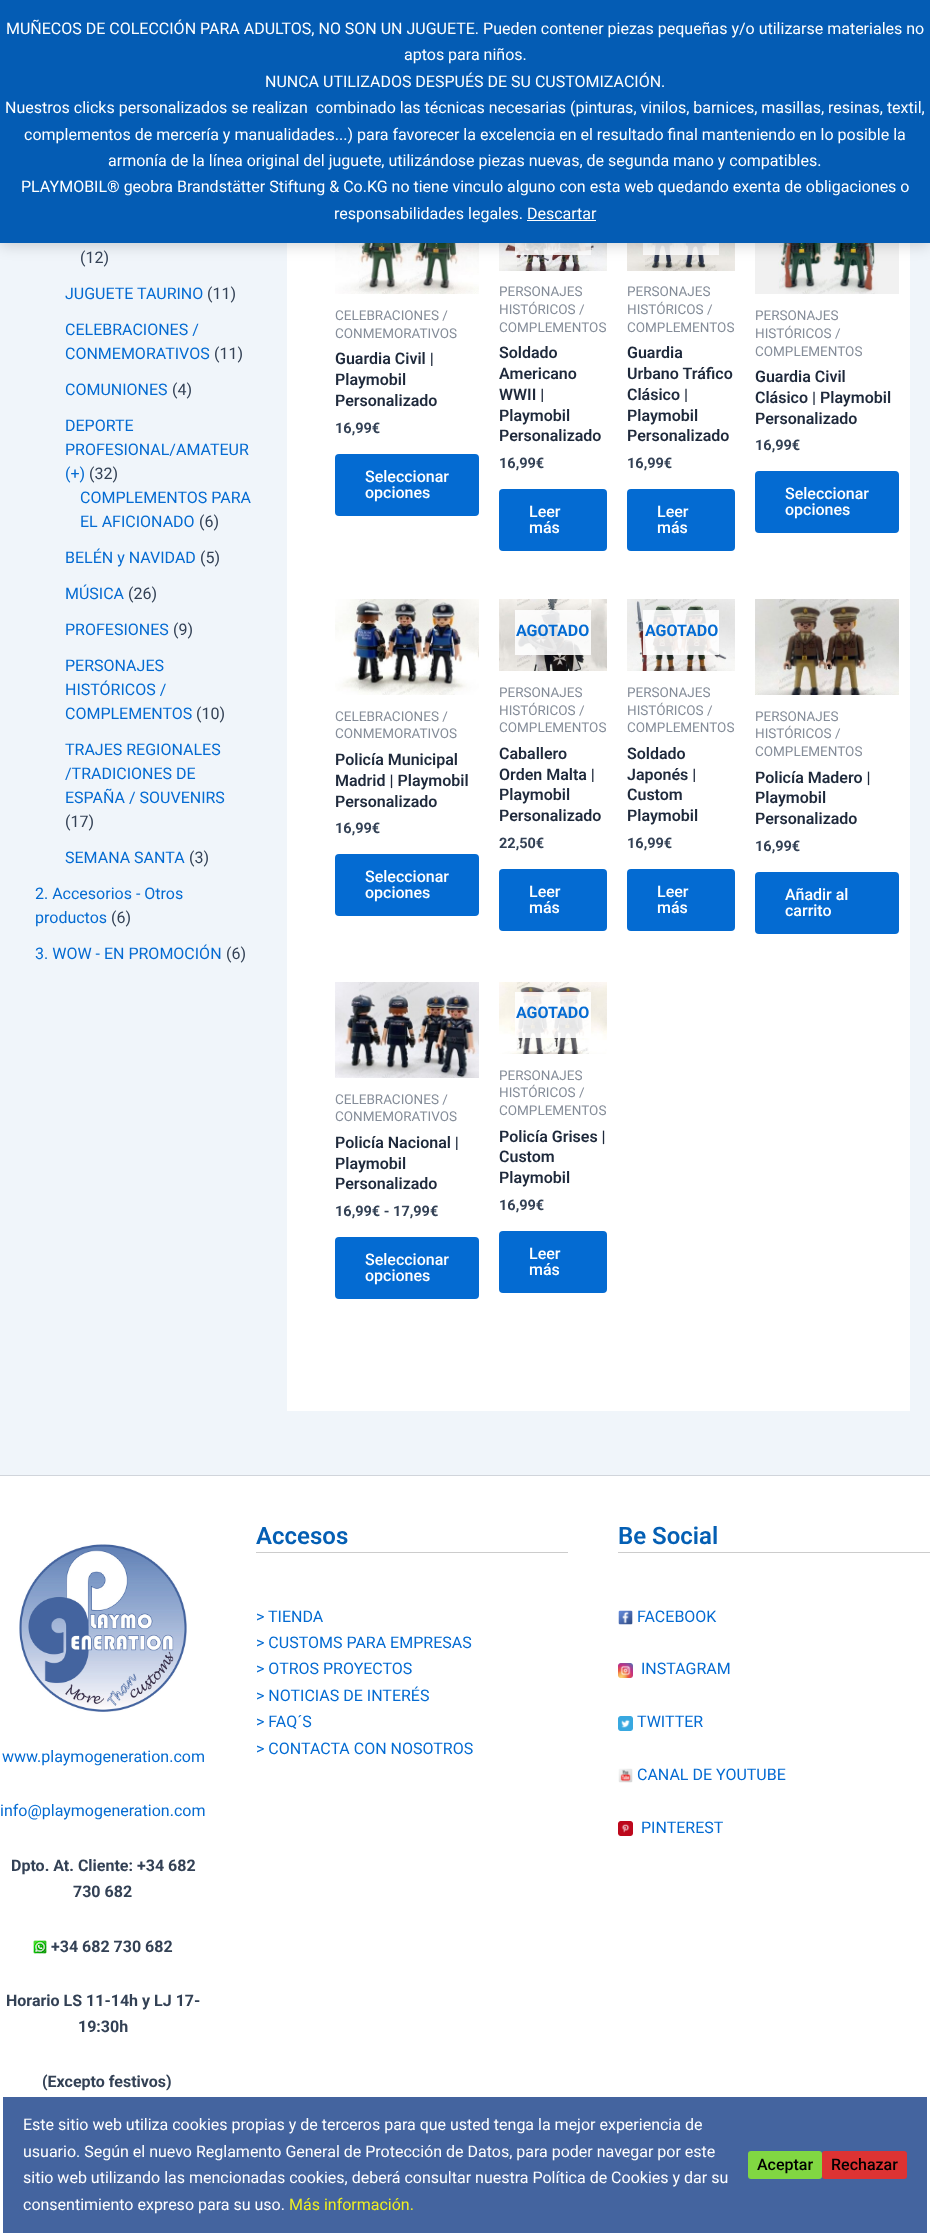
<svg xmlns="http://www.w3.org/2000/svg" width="930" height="2236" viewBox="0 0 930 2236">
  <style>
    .t1 { font: 16px Roboto; fill: #fff; }
    .t2 { font: 16px Roboto; fill: #334155; }
    .t3 { font: 16px Roboto; fill: #046bd2; }
    .t4 { font: 13.5px Roboto; fill: #858d99; }
    .t5 { font: 600 16px Roboto; fill: #1e293b; }
    .t6 { font: bold 14.5px Roboto; fill: #334155; }
    .t7 { font: 500 16px Roboto; fill: #fff; }
    .t8 { font: bold 16px Roboto; fill: #046bd2; }
    .t9 { font: 600 24px Roboto; fill: #045fb4; }
    .t10 { font: bold 16px Roboto; fill: #334155; }
    .t11 { font: 16px Roboto; fill: #ee2; }
    .t12 { font: 500 16px Roboto; fill: #000; }
  </style>
  <rect width="100%" height="100%" fill="#f0f5fa"/>
  <rect x="287" y="243" width="623" height="1168" fill="#fff"/>
  <image x="335" y="243" width="144" height="51" href="images/1.png"/>
  <image x="499" y="243" width="108" height="28" href="images/2.png"/>
  <rect x="515" y="243" width="76" height="12" fill="#ffffffe0"/>
  <image x="627" y="243" width="108" height="28" href="images/3.png"/>
  <rect x="643" y="243" width="76" height="12" fill="#ffffffe0"/>
  <image x="755" y="243" width="144" height="51" href="images/4.png"/>
  <rect x="0" y="1" width="930" height="243" fill="#00000033" filter="blur(8px)"/>
  <rect x="0" y="0" width="930" height="243" fill="#045cb4"/>
  <text x="6" y="34" class="t1">MUÑECOS DE COLECCIÓN PARA ADULTOS, NO SON UN JUGUETE. Pueden contener piezas pequeñas y/o utilizarse materiales no</text>
  <text x="404" y="60" class="t1">aptos para niños.</text>
  <text x="265" y="87" class="t1">NUNCA UTILIZADOS DESPUÉS DE SU CUSTOMIZACIÓN.</text>
  <text x="5" y="113" class="t1" xml:space="preserve">Nuestros clicks personalizados se realizan  combinado las técnicas necesarias (pinturas, vinilos, barnices, masillas, resinas, textil,</text>
  <text x="24" y="140" class="t1">complementos de mercería y manualidades...) para favorecer la excelencia en el resultado final manteniendo en lo posible la</text>
  <text x="108" y="166" class="t1">armonía de la línea original del juguete, utilizándose piezas nuevas, de segunda mano y compatibles.</text>
  <text x="21" y="192" class="t1">PLAYMOBIL® geobra Brandstätter Stiftung &amp; Co.KG no tiene vinculo alguno con esta web quedando exenta de obligaciones o</text>
  <text x="334" y="219" class="t1">responsabilidades legales. Descartar</text>
  <rect x="527" y="220" width="69" height="1" fill="#fff"/>
  <text x="80" y="263" class="t2">(12)</text>
  <text x="65" y="299" class="t3">JUGUETE TAURINO</text>
  <text x="207" y="299" class="t2">(11)</text>
  <text x="65" y="335" class="t3">CELEBRACIONES /</text>
  <text x="65" y="359" class="t3">CONMEMORATIVOS</text>
  <text x="214" y="359" class="t2">(11)</text>
  <text x="65" y="395" class="t3">COMUNIONES</text>
  <text x="172" y="395" class="t2">(4)</text>
  <text x="65" y="431" class="t3">DEPORTE</text>
  <text x="65" y="455" class="t3">PROFESIONAL/AMATEUR</text>
  <text x="65" y="479" class="t3">(+)</text>
  <text x="89" y="479" class="t2">(32)</text>
  <text x="80" y="503" class="t3">COMPLEMENTOS PARA</text>
  <text x="80" y="527" class="t3">EL AFICIONADO</text>
  <text x="199" y="527" class="t2">(6)</text>
  <text x="65" y="563" class="t3">BELÉN y NAVIDAD</text>
  <text x="200" y="563" class="t2">(5)</text>
  <text x="65" y="599" class="t3">MÚSICA</text>
  <text x="128" y="599" class="t2">(26)</text>
  <text x="65" y="635" class="t3">PROFESIONES</text>
  <text x="173" y="635" class="t2">(9)</text>
  <text x="65" y="671" class="t3">PERSONAJES</text>
  <text x="65" y="695" class="t3">HISTÓRICOS /</text>
  <text x="65" y="719" class="t3">COMPLEMENTOS</text>
  <text x="196" y="719" class="t2">(10)</text>
  <text x="65" y="755" class="t3">TRAJES REGIONALES</text>
  <text x="65" y="779" class="t3">/TRADICIONES DE</text>
  <text x="65" y="803" class="t3">ESPAÑA / SOUVENIRS</text>
  <text x="65" y="827" class="t2">(17)</text>
  <text x="65" y="863" class="t3">SEMANA SANTA</text>
  <text x="189" y="863" class="t2">(3)</text>
  <text x="35" y="899" class="t3">2. Accesorios - Otros</text>
  <text x="35" y="923" class="t3">productos</text>
  <text x="111" y="923" class="t2">(6)</text>
  <text x="35" y="959" class="t3">3. WOW - EN PROMOCIÓN</text>
  <text x="226" y="959" class="t2">(6)</text>
  <text x="335" y="320" class="t4">CELEBRACIONES /</text>
  <text x="335" y="338" class="t4">CONMEMORATIVOS</text>
  <text x="335" y="364" class="t5">Guardia Civil |</text>
  <text x="335" y="385" class="t5">Playmobil</text>
  <text x="335" y="406" class="t5">Personalizado</text>
  <text x="335" y="433" class="t6">16,99€</text>
  <rect x="335" y="454" width="144" height="62" rx="4" fill="#046bd2"/>
  <text x="365" y="482" class="t7">Seleccionar</text>
  <text x="365" y="498" class="t7">opciones</text>
  <text x="499" y="296" class="t4">PERSONAJES</text>
  <text x="499" y="314" class="t4">HISTÓRICOS /</text>
  <text x="499" y="332" class="t4">COMPLEMENTOS</text>
  <text x="499" y="358" class="t5">Soldado</text>
  <text x="499" y="379" class="t5">Americano</text>
  <text x="499" y="400" class="t5">WWII |</text>
  <text x="499" y="421" class="t5">Playmobil</text>
  <text x="499" y="441" class="t5">Personalizado</text>
  <text x="499" y="468" class="t6">16,99€</text>
  <rect x="499" y="489" width="108" height="62" rx="4" fill="#046bd2"/>
  <text x="529" y="517" class="t7">Leer</text>
  <text x="529" y="533" class="t7">más</text>
  <text x="627" y="296" class="t4">PERSONAJES</text>
  <text x="627" y="314" class="t4">HISTÓRICOS /</text>
  <text x="627" y="332" class="t4">COMPLEMENTOS</text>
  <text x="627" y="358" class="t5">Guardia</text>
  <text x="627" y="379" class="t5">Urbano Tráfico</text>
  <text x="627" y="400" class="t5">Clásico |</text>
  <text x="627" y="421" class="t5">Playmobil</text>
  <text x="627" y="441" class="t5">Personalizado</text>
  <text x="627" y="468" class="t6">16,99€</text>
  <rect x="627" y="489" width="108" height="62" rx="4" fill="#046bd2"/>
  <text x="657" y="517" class="t7">Leer</text>
  <text x="657" y="533" class="t7">más</text>
  <text x="755" y="320" class="t4">PERSONAJES</text>
  <text x="755" y="338" class="t4">HISTÓRICOS /</text>
  <text x="755" y="356" class="t4">COMPLEMENTOS</text>
  <text x="755" y="382" class="t5">Guardia Civil</text>
  <text x="755" y="403" class="t5">Clásico | Playmobil</text>
  <text x="755" y="424" class="t5">Personalizado</text>
  <text x="755" y="450" class="t6">16,99€</text>
  <rect x="755" y="471" width="144" height="62" rx="4" fill="#046bd2"/>
  <text x="785" y="499" class="t7">Seleccionar</text>
  <text x="785" y="515" class="t7">opciones</text>
  <image x="335" y="599" width="144" height="96" href="images/5.png"/>
  <text x="335" y="721" class="t4">CELEBRACIONES /</text>
  <text x="335" y="738" class="t4">CONMEMORATIVOS</text>
  <text x="335" y="765" class="t5">Policía Municipal</text>
  <text x="335" y="786" class="t5">Madrid | Playmobil</text>
  <text x="335" y="807" class="t5">Personalizado</text>
  <text x="335" y="833" class="t6">16,99€</text>
  <rect x="335" y="854" width="144" height="62" rx="4" fill="#046bd2"/>
  <text x="365" y="882" class="t7">Seleccionar</text>
  <text x="365" y="898" class="t7">opciones</text>
  <image x="499" y="599" width="108" height="72" href="images/6.png"/>
  <rect x="515" y="610" width="76" height="45" fill="#ffffffe0"/>
  <text x="516" y="636" class="t8">AGOTADO</text>
  <text x="499" y="697" class="t4">PERSONAJES</text>
  <text x="499" y="715" class="t4">HISTÓRICOS /</text>
  <text x="499" y="732" class="t4">COMPLEMENTOS</text>
  <text x="499" y="759" class="t5">Caballero</text>
  <text x="499" y="780" class="t5">Orden Malta |</text>
  <text x="499" y="800" class="t5">Playmobil</text>
  <text x="499" y="821" class="t5">Personalizado</text>
  <text x="499" y="848" class="t6">22,50€</text>
  <rect x="499" y="869" width="108" height="62" rx="4" fill="#046bd2"/>
  <text x="529" y="897" class="t7">Leer</text>
  <text x="529" y="913" class="t7">más</text>
  <image x="627" y="599" width="108" height="72" href="images/7.png"/>
  <rect x="643" y="610" width="76" height="45" fill="#ffffffe0"/>
  <text x="645" y="636" class="t8">AGOTADO</text>
  <text x="627" y="697" class="t4">PERSONAJES</text>
  <text x="627" y="715" class="t4">HISTÓRICOS /</text>
  <text x="627" y="732" class="t4">COMPLEMENTOS</text>
  <text x="627" y="759" class="t5">Soldado</text>
  <text x="627" y="780" class="t5">Japonés |</text>
  <text x="627" y="800" class="t5">Custom</text>
  <text x="627" y="821" class="t5">Playmobil</text>
  <text x="627" y="848" class="t6">16,99€</text>
  <rect x="627" y="869" width="108" height="62" rx="4" fill="#046bd2"/>
  <text x="657" y="897" class="t7">Leer</text>
  <text x="657" y="913" class="t7">más</text>
  <image x="755" y="599" width="144" height="96" href="images/8.png"/>
  <text x="755" y="721" class="t4">PERSONAJES</text>
  <text x="755" y="738" class="t4">HISTÓRICOS /</text>
  <text x="755" y="756" class="t4">COMPLEMENTOS</text>
  <text x="755" y="783" class="t5">Policía Madero |</text>
  <text x="755" y="803" class="t5">Playmobil</text>
  <text x="755" y="824" class="t5">Personalizado</text>
  <text x="755" y="851" class="t6">16,99€</text>
  <rect x="755" y="872" width="144" height="62" rx="4" fill="#046bd2"/>
  <text x="785" y="900" class="t7">Añadir al</text>
  <text x="785" y="916" class="t7">carrito</text>
  <image x="335" y="982" width="144" height="96" href="images/9.png"/>
  <text x="335" y="1104" class="t4">CELEBRACIONES /</text>
  <text x="335" y="1121" class="t4">CONMEMORATIVOS</text>
  <text x="335" y="1148" class="t5">Policía Nacional |</text>
  <text x="335" y="1169" class="t5">Playmobil</text>
  <text x="335" y="1189" class="t5">Personalizado</text>
  <text x="335" y="1216" class="t6">16,99€ - 17,99€</text>
  <rect x="335" y="1237" width="144" height="62" rx="4" fill="#046bd2"/>
  <text x="365" y="1265" class="t7">Seleccionar</text>
  <text x="365" y="1281" class="t7">opciones</text>
  <image x="499" y="982" width="108" height="72" href="images/10.png"/>
  <rect x="515" y="992" width="76" height="46" fill="#ffffffe0"/>
  <text x="516" y="1018" class="t8">AGOTADO</text>
  <text x="499" y="1080" class="t4">PERSONAJES</text>
  <text x="499" y="1097" class="t4">HISTÓRICOS /</text>
  <text x="499" y="1115" class="t4">COMPLEMENTOS</text>
  <text x="499" y="1142" class="t5">Policía Grises |</text>
  <text x="499" y="1162" class="t5">Custom</text>
  <text x="499" y="1183" class="t5">Playmobil</text>
  <text x="499" y="1210" class="t6">16,99€</text>
  <rect x="499" y="1231" width="108" height="62" rx="4" fill="#046bd2"/>
  <text x="529" y="1259" class="t7">Leer</text>
  <text x="529" y="1275" class="t7">más</text>
  <rect x="0" y="1476" width="930" height="621" fill="#fff"/>
  <rect x="0" y="1475" width="930" height="1" fill="#d1d5db"/>
  <text x="256" y="1544" class="t9">Accesos</text>
  <rect x="256" y="1552" width="312" height="1" fill="#ccc"/>
  <text x="256" y="1622" class="t3">&gt; TIENDA</text>
  <text x="256" y="1648" class="t3">&gt; CUSTOMS PARA EMPRESAS</text>
  <text x="256" y="1674" class="t3">&gt; OTROS PROYECTOS</text>
  <text x="256" y="1701" class="t3">&gt; NOTICIAS DE INTERÉS</text>
  <text x="256" y="1727" class="t3">&gt; FAQ´S</text>
  <text x="256" y="1754" class="t3">&gt; CONTACTA CON NOSOTROS</text>
  <text x="618" y="1544" class="t9">Be Social</text>
  <rect x="618" y="1552" width="312" height="1" fill="#ccc"/>
  <image x="618" y="1610" width="15" height="15" href="images/11.png"/>
  <text x="637" y="1622" class="t3">FACEBOOK</text>
  <image x="618" y="1663" width="15" height="15" href="images/12.png"/>
  <text x="641" y="1674" class="t3">INSTAGRAM</text>
  <image x="618" y="1716" width="15" height="15" href="images/13.png"/>
  <text x="637" y="1727" class="t3">TWITTER</text>
  <image x="618" y="1768" width="15" height="15" href="images/14.png"/>
  <text x="637" y="1780" class="t3">CANAL DE YOUTUBE</text>
  <image x="618" y="1821" width="15" height="15" href="images/15.png"/>
  <text x="641" y="1833" class="t3">PINTEREST</text>
  <image x="19" y="1544" width="168" height="168" href="images/16.png"/>
  <text x="2" y="1762" class="t3">www.playmogeneration.com</text>
  <text x="0" y="1816" class="t3">info@playmogeneration.com</text>
  <text x="11" y="1871" class="t10">Dpto. At. Cliente: +34 682</text>
  <text x="73" y="1897" class="t10">730 682</text>
  <image x="33" y="1940" width="14" height="14" href="images/17.png"/>
  <text x="51" y="1952" class="t10">+34 682 730 682</text>
  <text x="6" y="2006" class="t10">Horario LS 11-14h y LJ 17-</text>
  <text x="78" y="2032" class="t10">19:30h</text>
  <text x="42" y="2087" class="t10">(Excepto festivos)</text>
  <rect x="0" y="2233" width="930" height="3" fill="#fff"/>
  <rect x="1.5" y="2095.5" width="927" height="139" rx="1.5" fill="#44649f" stroke="#fff" stroke-width="3"/>
  <text x="23" y="2130" class="t1">Este sitio web utiliza cookies propias y de terceros para que usted tenga la mejor experiencia de</text>
  <text x="23" y="2157" class="t1">usuario. Según el nuevo Reglamento General de Protección de Datos, para poder navegar por este</text>
  <text x="23" y="2183" class="t1">sitio web utilizando las mencionadas cookies, deberá consultar nuestra Política de Cookies y dar su</text>
  <text x="23" y="2210" class="t1">consentimiento expreso para su uso.</text>
  <text x="289" y="2210" class="t11">Más información.</text>
  <rect x="748" y="2151" width="74" height="28" rx="3" fill="#81d742"/>
  <text x="757" y="2170" class="t12">Aceptar</text>
  <rect x="822" y="2151" width="85" height="28" rx="3" fill="#d33"/>
  <text x="831" y="2170" class="t12">Rechazar</text>
</svg>
